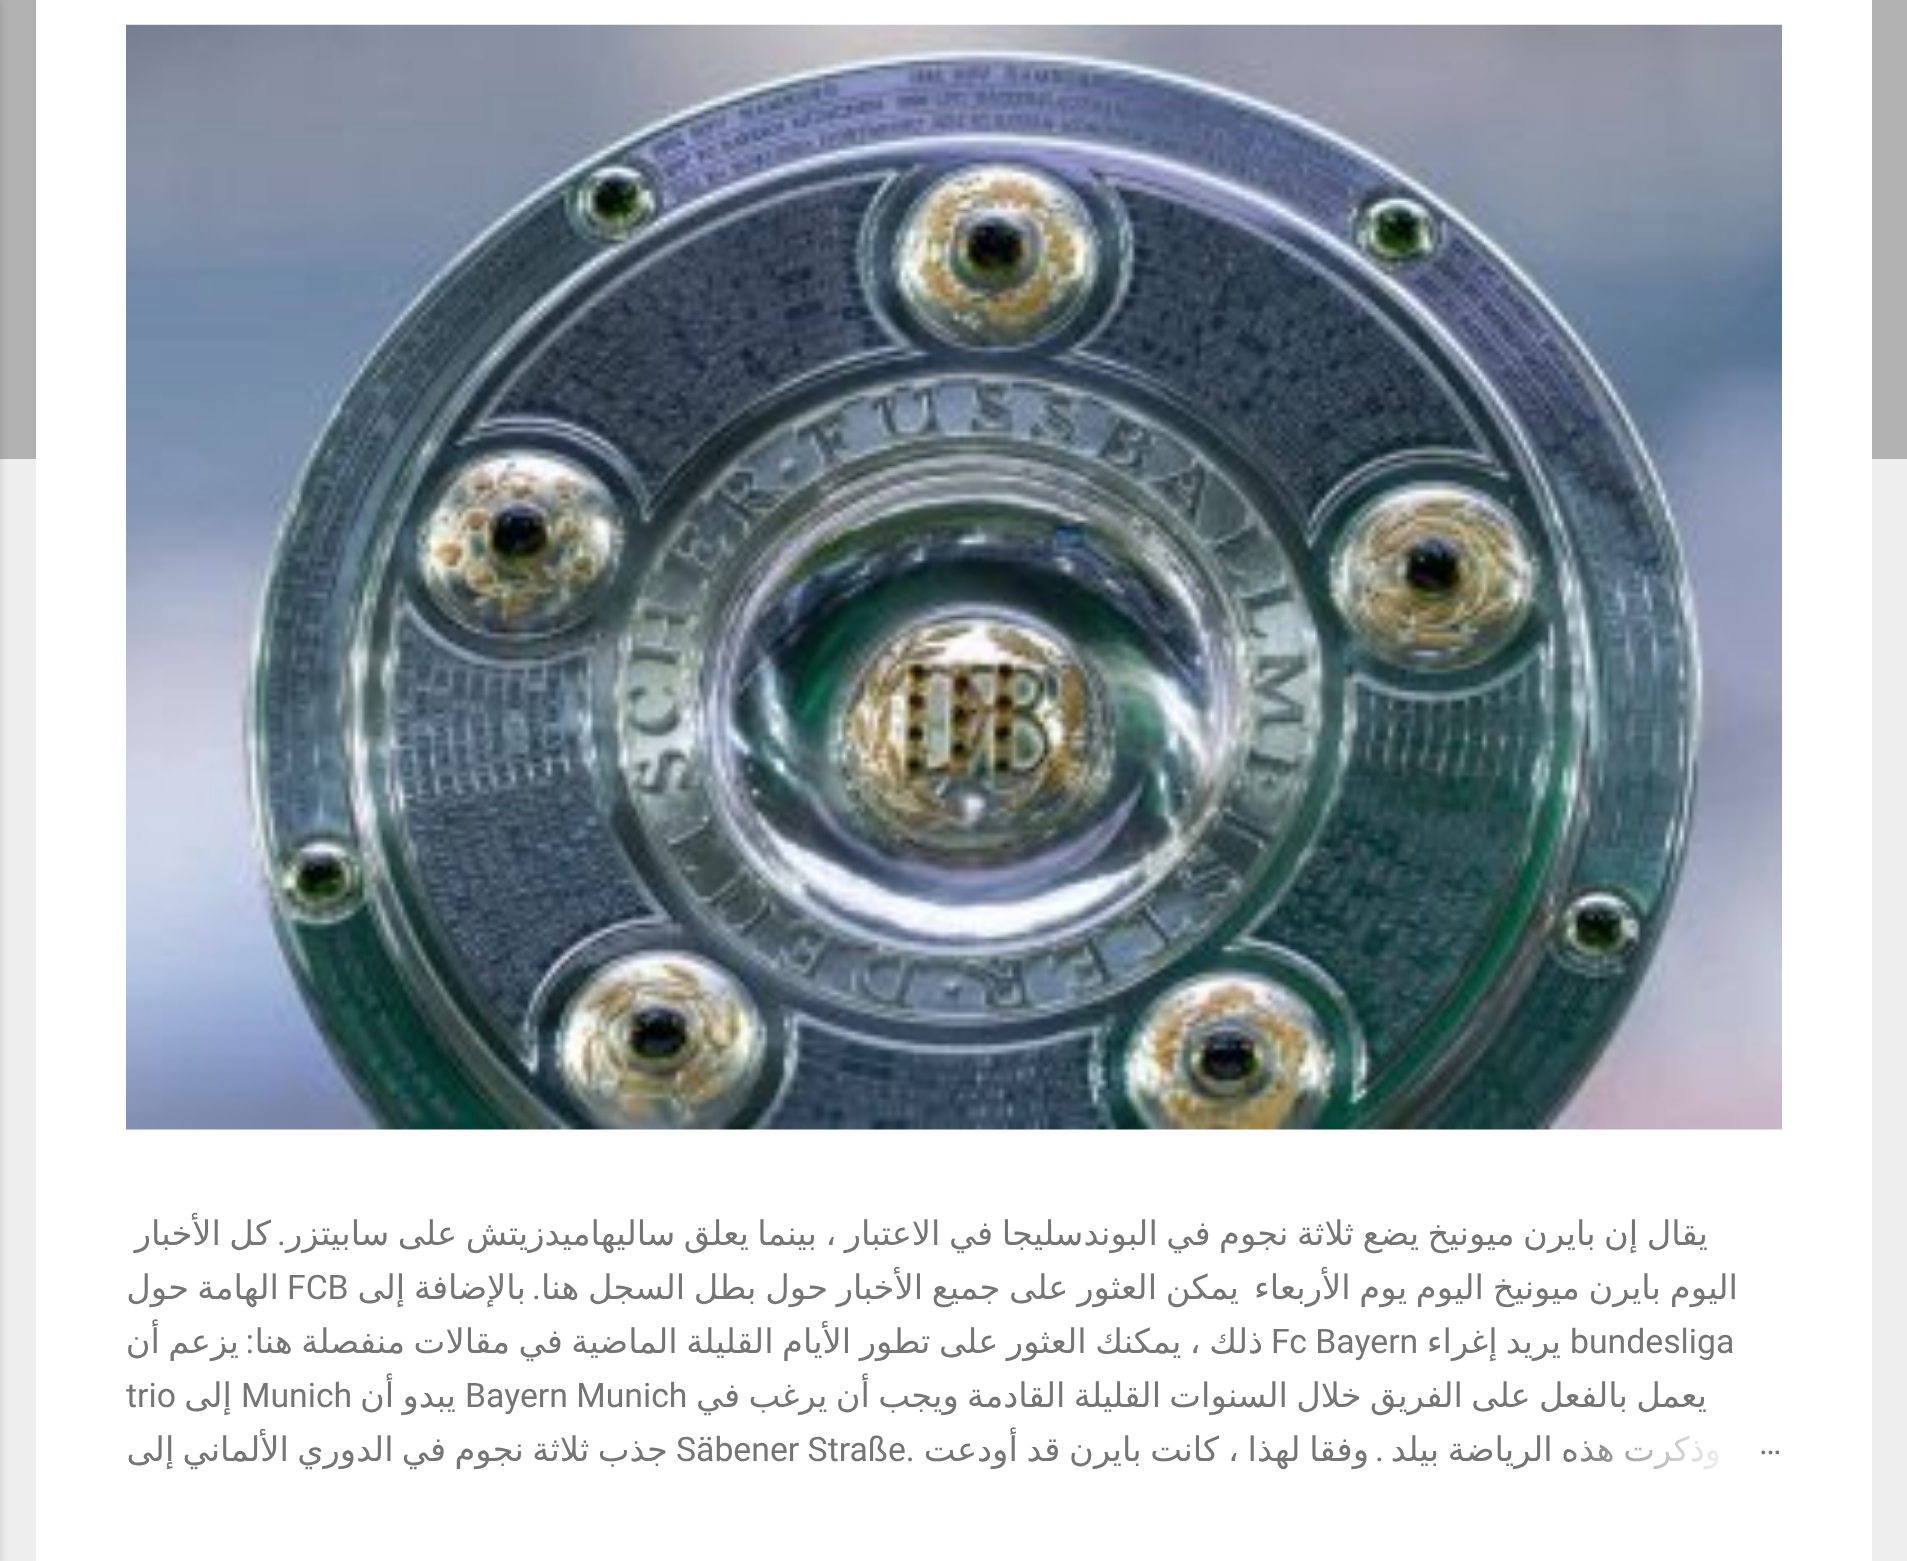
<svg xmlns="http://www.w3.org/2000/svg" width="1907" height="1561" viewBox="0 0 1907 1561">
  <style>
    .t1 { font: 33.75px DejaVu Sans; direction: rtl; fill: #757575; }
    .t2 { font: 33.75px Roboto; fill: #757575; }
    .t3 { font: 33.75px Roboto; direction: rtl; fill: #757575; }
  </style>
  <defs>
    <linearGradient id="g1" gradientUnits="userSpaceOnUse" x1="1782" y1="1449" x2="1566" y2="1449"><stop offset="0" stop-color="#fff"/><stop offset="0.2" stop-color="#fff"/><stop offset="1" stop-color="#fff" stop-opacity="0"/></linearGradient>
  </defs>
  <rect width="100%" height="100%" fill="#eee"/>
  <rect x="0" y="0" width="1907" height="459" fill="#b1b1b1"/>
  <rect x="36" y="0" width="1836" height="1561" fill="#fff"/>
  <image x="126" y="24" width="1656" height="1106" href="images/1.png"/>
  <text x="1721" y="1461" word-spacing="-2" class="t1">وذكرت هذه الرياضة بيلد</text>
  <rect x="1570" y="1435" width="155" height="35" fill="url(#g1)"/>
  <text x="1759" y="1454" class="t2">…</text>
  <text x="1708" y="1245" word-spacing="-2.25" class="t1">يقال إن بايرن ميونيخ يضع ثلاثة نجوم في البوندسليجا في الاعتبار ، بينما يعلق ساليهاميدزيتش على سابيتزر</text>
  <text x="286" y="1245" class="t3">.</text>
  <text x="271" y="1245" word-spacing="-2.25" class="t1">كل الأخبار</text>
  <text x="1738" y="1299" class="t1">اليوم</text>
  <text x="1661" y="1299" word-spacing="-2" class="t1">بايرن ميونيخ اليوم يوم الأربعاء</text>
  <text x="1239" y="1299" word-spacing="-2" class="t1">يمكن العثور على جميع الأخبار حول بطل السجل هنا</text>
  <text x="541" y="1299" class="t3">.</text>
  <text x="526" y="1299" word-spacing="-2" class="t1">بالإضافة إلى</text>
  <text x="287" y="1299" class="t2">FCB</text>
  <text x="279" y="1299" word-spacing="-2.4" class="t1">الهامة حول</text>
  <text x="1570" y="1353" class="t2">bundesliga</text>
  <text x="1561" y="1353" word-spacing="-2.4" class="t1">يريد إغراء</text>
  <text x="1263" y="1353" word-spacing="-2.25" class="t1">ذلك ، يمكنك العثور على تطور الأيام القليلة الماضية في مقالات منفصلة هنا</text>
  <text x="1271" y="1353" class="t2">Fc Bayern</text>
  <text x="254" y="1353" class="t3">:</text>
  <text x="239" y="1353" word-spacing="-2.25" class="t1">يزعم أن</text>
  <text x="1707" y="1407" word-spacing="-2.4" class="t1">يعمل بالفعل على الفريق خلال السنوات القليلة القادمة ويجب أن يرغب في</text>
  <text x="465" y="1407" class="t2">Bayern Munich</text>
  <text x="456" y="1407" word-spacing="-2.4" class="t1">يبدو أن</text>
  <text x="241" y="1407" class="t2">Munich</text>
  <text x="232" y="1407" class="t1">إلى</text>
  <text x="126" y="1407" class="t2">trio</text>
  <text x="1369" y="1461" word-spacing="-2" class="t1">وفقا لهذا ، كانت بايرن قد أودعت</text>
  <text x="1384" y="1461" class="t3">.</text>
  <text x="668" y="1461" word-spacing="-2.4" class="t1">جذب ثلاثة نجوم في الدوري الألماني إلى</text>
  <text x="676" y="1461" class="t2">Säbener Straße.</text>
  <rect x="-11" y="2" width="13" height="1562" fill="#0000001a" filter="blur(3.5px)"/>
</svg>
